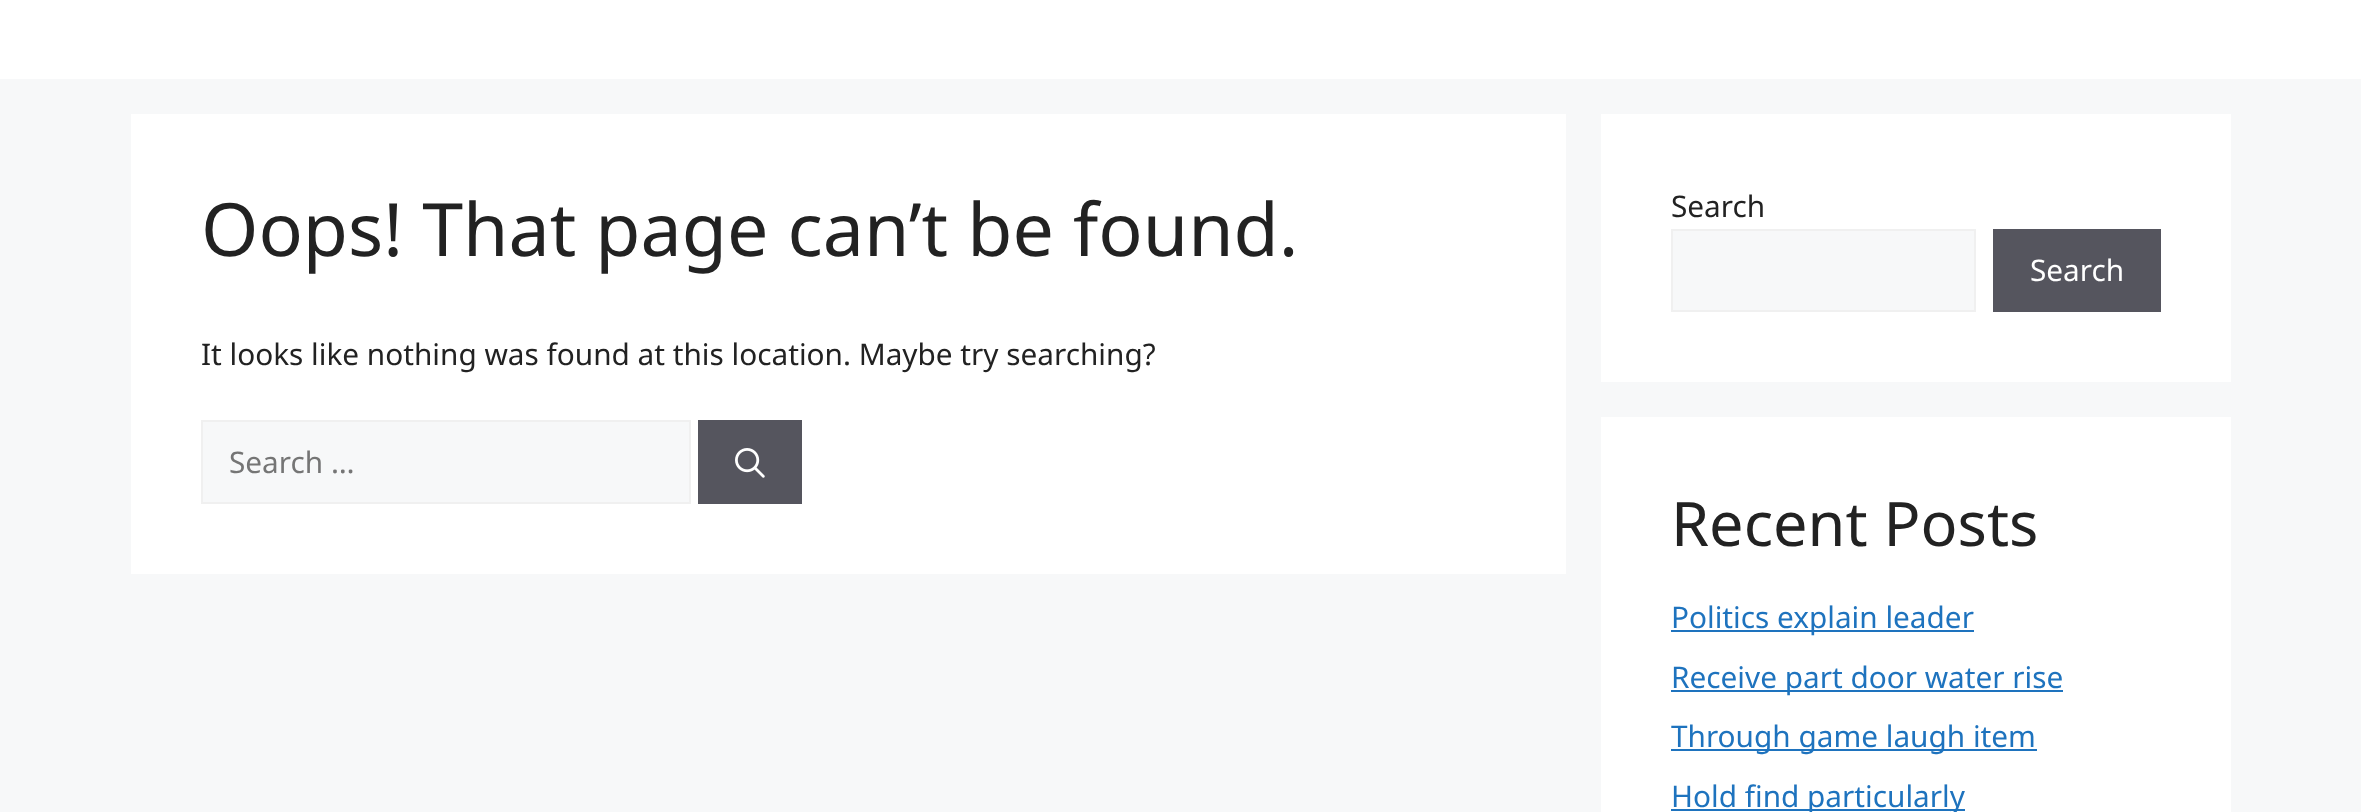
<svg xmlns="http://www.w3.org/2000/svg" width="2361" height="812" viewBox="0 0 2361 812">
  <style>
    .t1 { font: 73.5px Noto Sans; fill: #222; }
    .t2 { font: 29.75px Noto Sans; fill: #222; }
    .t3 { font: 29.75px Noto Sans; fill: #757575; }
    .t4 { font: 29.75px Noto Sans; fill: #fff; }
    .t5 { font: 61.25px Noto Sans; fill: #222; }
    .t6 { font: 29.75px Noto Sans; fill: #1e73be; }
  </style>
  <rect width="100%" height="100%" fill="#f7f8f9"/>
  <rect x="0" y="0" width="2361" height="79" fill="#fff"/>
  <rect x="131" y="114" width="1435" height="460" fill="#fff"/>
  <text x="201" y="256" class="t1">Oops! That page can’t be found.</text>
  <text x="201" y="365" class="t2">It looks like nothing was found at this location. Maybe try searching?</text>
  <rect x="202" y="421" width="488" height="82" fill="#f7f8f9" stroke="#f0f0f0" stroke-width="2"/>
  <text x="229" y="473" class="t3">Search …</text>
  <rect x="698" y="420" width="104" height="84" fill="#55555e"/>
  <image x="735" y="448" width="30" height="30" href="images/1.png"/>
  <rect x="1601" y="114" width="630" height="268" fill="#fff"/>
  <text x="1671" y="217" class="t2">Search</text>
  <rect x="1672" y="230" width="303" height="81" fill="#f7f8f9" stroke="#f0f0f0" stroke-width="2"/>
  <rect x="1993" y="229" width="168" height="83" fill="#55555e"/>
  <text x="2030" y="281" class="t4">Search</text>
  <rect x="1601" y="417" width="630" height="395" fill="#fff"/>
  <text x="1671" y="546" class="t5">Recent Posts</text>
  <rect x="1671" y="630" width="303" height="2" fill="#1e73be"/>
  <text x="1671" y="628" class="t6">Politics explain leader</text>
  <rect x="1671" y="690" width="392" height="2" fill="#1e73be"/>
  <text x="1671" y="688" class="t6">Receive part door water rise</text>
  <rect x="1671" y="749" width="366" height="2" fill="#1e73be"/>
  <text x="1671" y="747" class="t6">Through game laugh item</text>
  <rect x="1671" y="809" width="294" height="2" fill="#1e73be"/>
  <text x="1671" y="807" class="t6">Hold find particularly</text>
</svg>
